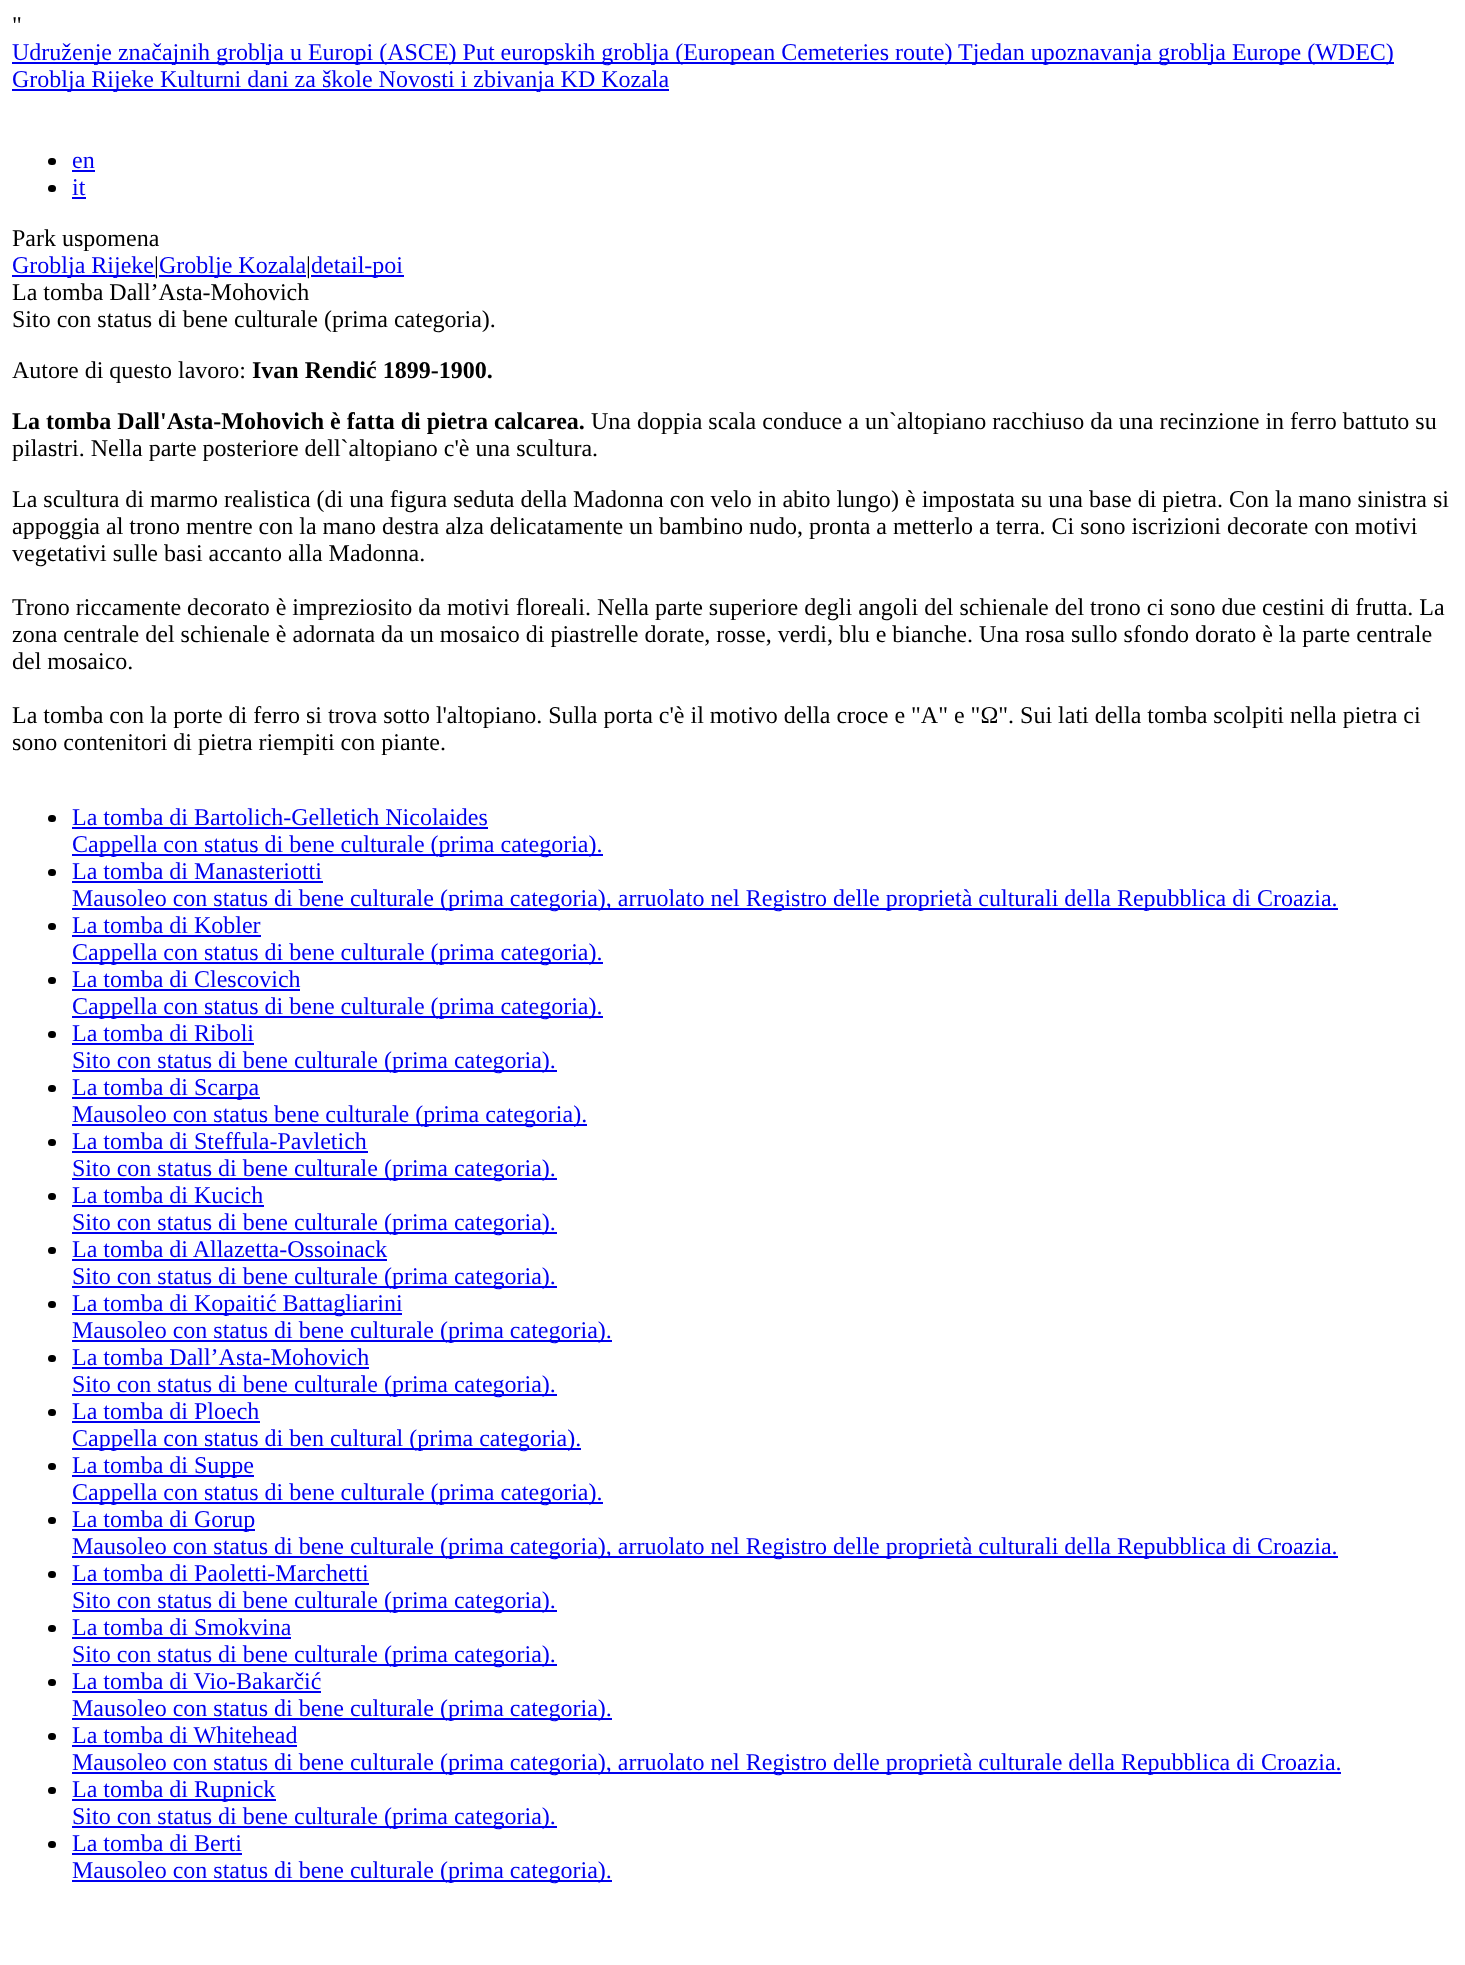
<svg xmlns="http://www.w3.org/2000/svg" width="1465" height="1965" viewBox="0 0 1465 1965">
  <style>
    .t1 { font: 24px Liberation Serif; fill: #000; }
    .t2 { font: 24px Liberation Serif; fill: #00e; }
    .t3 { font: bold 24px Liberation Serif; fill: #000; }
  </style>
  <rect width="100%" height="100%" fill="#fff"/>
  <text x="12" y="33" class="t1">"</text>
  <rect x="12" y="62" width="1382" height="2" fill="#00e"/>
  <text x="12" y="60" class="t2">Udruženje značajnih groblja u Europi (ASCE) Put europskih groblja (European Cemeteries route)</text>
  <text x="958" y="60" class="t2">Tjedan upoznavanja groblja Europe (WDEC)</text>
  <rect x="12" y="89" width="657" height="2" fill="#00e"/>
  <text x="12" y="87" class="t2">Groblja Rijeke Kulturni dani za škole Novosti i zbivanja KD Kozala</text>
  <rect x="48" y="158" width="8" height="7" rx="3.5" fill="#000"/>
  <text x="72" y="168" class="t2">en</text>
  <rect x="72" y="170" width="23" height="2" fill="#00e"/>
  <rect x="48" y="185" width="8" height="7" rx="3.5" fill="#000"/>
  <text x="72" y="195" class="t2">it</text>
  <rect x="72" y="197" width="14" height="2" fill="#00e"/>
  <text x="12" y="246" class="t1">Park uspomena</text>
  <rect x="12" y="275" width="143" height="2" fill="#00e"/>
  <text x="12" y="273" class="t2">Groblja Rijeke</text>
  <text x="154" y="273" class="t1">|</text>
  <rect x="159" y="275" width="147" height="2" fill="#00e"/>
  <text x="159" y="273" class="t2">Groblje Kozala</text>
  <text x="306" y="273" class="t1">|</text>
  <rect x="311" y="275" width="93" height="2" fill="#00e"/>
  <text x="311" y="273" class="t2">detail-poi</text>
  <text x="12" y="300" class="t1">La tomba Dall’Asta-Mohovich</text>
  <text x="12" y="327" class="t1">Sito con status di bene culturale (prima categoria).</text>
  <text x="12" y="378" class="t1">Autore di questo lavoro:</text>
  <text x="252" y="378" class="t3">Ivan Rendić 1899-1900.</text>
  <text x="12" y="429" class="t3">La tomba Dall'Asta-Mohovich è fatta di pietra calcarea.</text>
  <text x="591" y="429" class="t1">Una doppia scala conduce a un`altopiano racchiuso da una recinzione in ferro battuto su</text>
  <text x="12" y="456" class="t1">pilastri. Nella parte posteriore dell`altopiano c'è una scultura.</text>
  <text x="12" y="507" class="t1">La scultura di marmo realistica (di una figura seduta della Madonna con velo in abito lungo) è impostata su una base di pietra. Con la mano sinistra si</text>
  <text x="12" y="534" class="t1">appoggia al trono mentre con la mano destra alza delicatamente un bambino nudo, pronta a metterlo a terra. Ci sono iscrizioni decorate con motivi</text>
  <text x="12" y="561" class="t1">vegetativi sulle basi accanto alla Madonna.</text>
  <text x="12" y="615" class="t1">Trono riccamente decorato è impreziosito da motivi floreali. Nella parte superiore degli angoli del schienale del trono ci sono due cestini di frutta. La</text>
  <text x="12" y="642" class="t1">zona centrale del schienale è adornata da un mosaico di piastrelle dorate, rosse, verdi, blu e bianche. Una rosa sullo sfondo dorato è la parte centrale</text>
  <text x="12" y="669" class="t1">del mosaico.</text>
  <text x="12" y="723" class="t1">La tomba con la porte di ferro si trova sotto l'altopiano. Sulla porta c'è il motivo della croce e "A" e "Ω". Sui lati della tomba scolpiti nella pietra ci</text>
  <text x="12" y="750" class="t1">sono contenitori di pietra riempiti con piante.</text>
  <rect x="48" y="815" width="8" height="7" rx="3.5" fill="#000"/>
  <text x="72" y="825" class="t2">La tomba di Bartolich-Gelletich Nicolaides</text>
  <rect x="72" y="827" width="416" height="2" fill="#00e"/>
  <rect x="72" y="854" width="531" height="2" fill="#00e"/>
  <text x="72" y="852" class="t2">Cappella con status di bene culturale (prima categoria).</text>
  <rect x="48" y="869" width="8" height="7" rx="3.5" fill="#000"/>
  <text x="72" y="879" class="t2">La tomba di Manasteriotti</text>
  <rect x="72" y="881" width="251" height="2" fill="#00e"/>
  <rect x="72" y="908" width="1266" height="2" fill="#00e"/>
  <text x="72" y="906" class="t2">Mausoleo con status di bene culturale (prima categoria), arruolato nel Registro delle proprietà culturali della Repubblica di Croazia.</text>
  <rect x="48" y="923" width="8" height="7" rx="3.5" fill="#000"/>
  <text x="72" y="933" class="t2">La tomba di Kobler</text>
  <rect x="72" y="935" width="189" height="2" fill="#00e"/>
  <rect x="72" y="962" width="531" height="2" fill="#00e"/>
  <text x="72" y="960" class="t2">Cappella con status di bene culturale (prima categoria).</text>
  <rect x="48" y="977" width="8" height="7" rx="3.5" fill="#000"/>
  <text x="72" y="987" class="t2">La tomba di Clescovich</text>
  <rect x="72" y="989" width="228" height="2" fill="#00e"/>
  <rect x="72" y="1016" width="531" height="2" fill="#00e"/>
  <text x="72" y="1014" class="t2">Cappella con status di bene culturale (prima categoria).</text>
  <rect x="48" y="1031" width="8" height="7" rx="3.5" fill="#000"/>
  <text x="72" y="1041" class="t2">La tomba di Riboli</text>
  <rect x="72" y="1043" width="182" height="2" fill="#00e"/>
  <rect x="72" y="1070" width="485" height="2" fill="#00e"/>
  <text x="72" y="1068" class="t2">Sito con status di bene culturale (prima categoria).</text>
  <rect x="48" y="1085" width="8" height="7" rx="3.5" fill="#000"/>
  <rect x="72" y="1097" width="188" height="2" fill="#00e"/>
  <text x="72" y="1095" class="t2">La tomba di Scarpa</text>
  <rect x="72" y="1124" width="515" height="2" fill="#00e"/>
  <text x="72" y="1122" class="t2">Mausoleo con status bene culturale (prima categoria).</text>
  <rect x="48" y="1139" width="8" height="7" rx="3.5" fill="#000"/>
  <text x="72" y="1149" class="t2">La tomba di Steffula-Pavletich</text>
  <rect x="72" y="1151" width="296" height="2" fill="#00e"/>
  <rect x="72" y="1178" width="485" height="2" fill="#00e"/>
  <text x="72" y="1176" class="t2">Sito con status di bene culturale (prima categoria).</text>
  <rect x="48" y="1193" width="8" height="7" rx="3.5" fill="#000"/>
  <text x="72" y="1203" class="t2">La tomba di Kucich</text>
  <rect x="72" y="1205" width="192" height="2" fill="#00e"/>
  <rect x="72" y="1232" width="485" height="2" fill="#00e"/>
  <text x="72" y="1230" class="t2">Sito con status di bene culturale (prima categoria).</text>
  <rect x="48" y="1247" width="8" height="7" rx="3.5" fill="#000"/>
  <text x="72" y="1257" class="t2">La tomba di Allazetta-Ossoinack</text>
  <rect x="72" y="1259" width="315" height="2" fill="#00e"/>
  <rect x="72" y="1286" width="485" height="2" fill="#00e"/>
  <text x="72" y="1284" class="t2">Sito con status di bene culturale (prima categoria).</text>
  <rect x="48" y="1301" width="8" height="7" rx="3.5" fill="#000"/>
  <rect x="72" y="1313" width="330" height="2" fill="#00e"/>
  <text x="72" y="1311" class="t2">La tomba di Kopaitić Battagliarini</text>
  <rect x="72" y="1340" width="540" height="2" fill="#00e"/>
  <text x="72" y="1338" class="t2">Mausoleo con status di bene culturale (prima categoria).</text>
  <rect x="48" y="1355" width="8" height="7" rx="3.5" fill="#000"/>
  <text x="72" y="1365" class="t2">La tomba Dall’Asta-Mohovich</text>
  <rect x="72" y="1367" width="297" height="2" fill="#00e"/>
  <rect x="72" y="1394" width="485" height="2" fill="#00e"/>
  <text x="72" y="1392" class="t2">Sito con status di bene culturale (prima categoria).</text>
  <rect x="48" y="1409" width="8" height="7" rx="3.5" fill="#000"/>
  <text x="72" y="1419" class="t2">La tomba di Ploech</text>
  <rect x="72" y="1421" width="188" height="2" fill="#00e"/>
  <rect x="72" y="1448" width="509" height="2" fill="#00e"/>
  <text x="72" y="1446" class="t2">Cappella con status di ben cultural (prima categoria).</text>
  <rect x="48" y="1463" width="8" height="7" rx="3.5" fill="#000"/>
  <rect x="72" y="1475" width="182" height="2" fill="#00e"/>
  <text x="72" y="1473" class="t2">La tomba di Suppe</text>
  <rect x="72" y="1502" width="531" height="2" fill="#00e"/>
  <text x="72" y="1500" class="t2">Cappella con status di bene culturale (prima categoria).</text>
  <rect x="48" y="1517" width="8" height="7" rx="3.5" fill="#000"/>
  <rect x="72" y="1529" width="183" height="2" fill="#00e"/>
  <text x="72" y="1527" class="t2">La tomba di Gorup</text>
  <rect x="72" y="1556" width="1266" height="2" fill="#00e"/>
  <text x="72" y="1554" class="t2">Mausoleo con status di bene culturale (prima categoria), arruolato nel Registro delle proprietà culturali della Repubblica di Croazia.</text>
  <rect x="48" y="1571" width="8" height="7" rx="3.5" fill="#000"/>
  <text x="72" y="1581" class="t2">La tomba di Paoletti-Marchetti</text>
  <rect x="72" y="1583" width="297" height="2" fill="#00e"/>
  <rect x="72" y="1610" width="485" height="2" fill="#00e"/>
  <text x="72" y="1608" class="t2">Sito con status di bene culturale (prima categoria).</text>
  <rect x="48" y="1625" width="8" height="7" rx="3.5" fill="#000"/>
  <text x="72" y="1635" class="t2">La tomba di Smokvina</text>
  <rect x="72" y="1637" width="219" height="2" fill="#00e"/>
  <rect x="72" y="1664" width="485" height="2" fill="#00e"/>
  <text x="72" y="1662" class="t2">Sito con status di bene culturale (prima categoria).</text>
  <rect x="48" y="1679" width="8" height="7" rx="3.5" fill="#000"/>
  <text x="72" y="1689" class="t2">La tomba di Vio-Bakarčić</text>
  <rect x="72" y="1691" width="249" height="2" fill="#00e"/>
  <rect x="72" y="1718" width="540" height="2" fill="#00e"/>
  <text x="72" y="1716" class="t2">Mausoleo con status di bene culturale (prima categoria).</text>
  <rect x="48" y="1733" width="8" height="7" rx="3.5" fill="#000"/>
  <text x="72" y="1743" class="t2">La tomba di Whitehead</text>
  <rect x="72" y="1745" width="225" height="2" fill="#00e"/>
  <rect x="72" y="1772" width="1269" height="2" fill="#00e"/>
  <text x="72" y="1770" class="t2">Mausoleo con status di bene culturale (prima categoria), arruolato nel Registro delle proprietà culturale della Repubblica di Croazia.</text>
  <rect x="48" y="1787" width="8" height="7" rx="3.5" fill="#000"/>
  <rect x="72" y="1799" width="204" height="2" fill="#00e"/>
  <text x="72" y="1797" class="t2">La tomba di Rupnick</text>
  <rect x="72" y="1826" width="485" height="2" fill="#00e"/>
  <text x="72" y="1824" class="t2">Sito con status di bene culturale (prima categoria).</text>
  <rect x="48" y="1841" width="8" height="7" rx="3.5" fill="#000"/>
  <text x="72" y="1851" class="t2">La tomba di Berti</text>
  <rect x="72" y="1853" width="170" height="2" fill="#00e"/>
  <rect x="72" y="1880" width="540" height="2" fill="#00e"/>
  <text x="72" y="1878" class="t2">Mausoleo con status di bene culturale (prima categoria).</text>
</svg>
